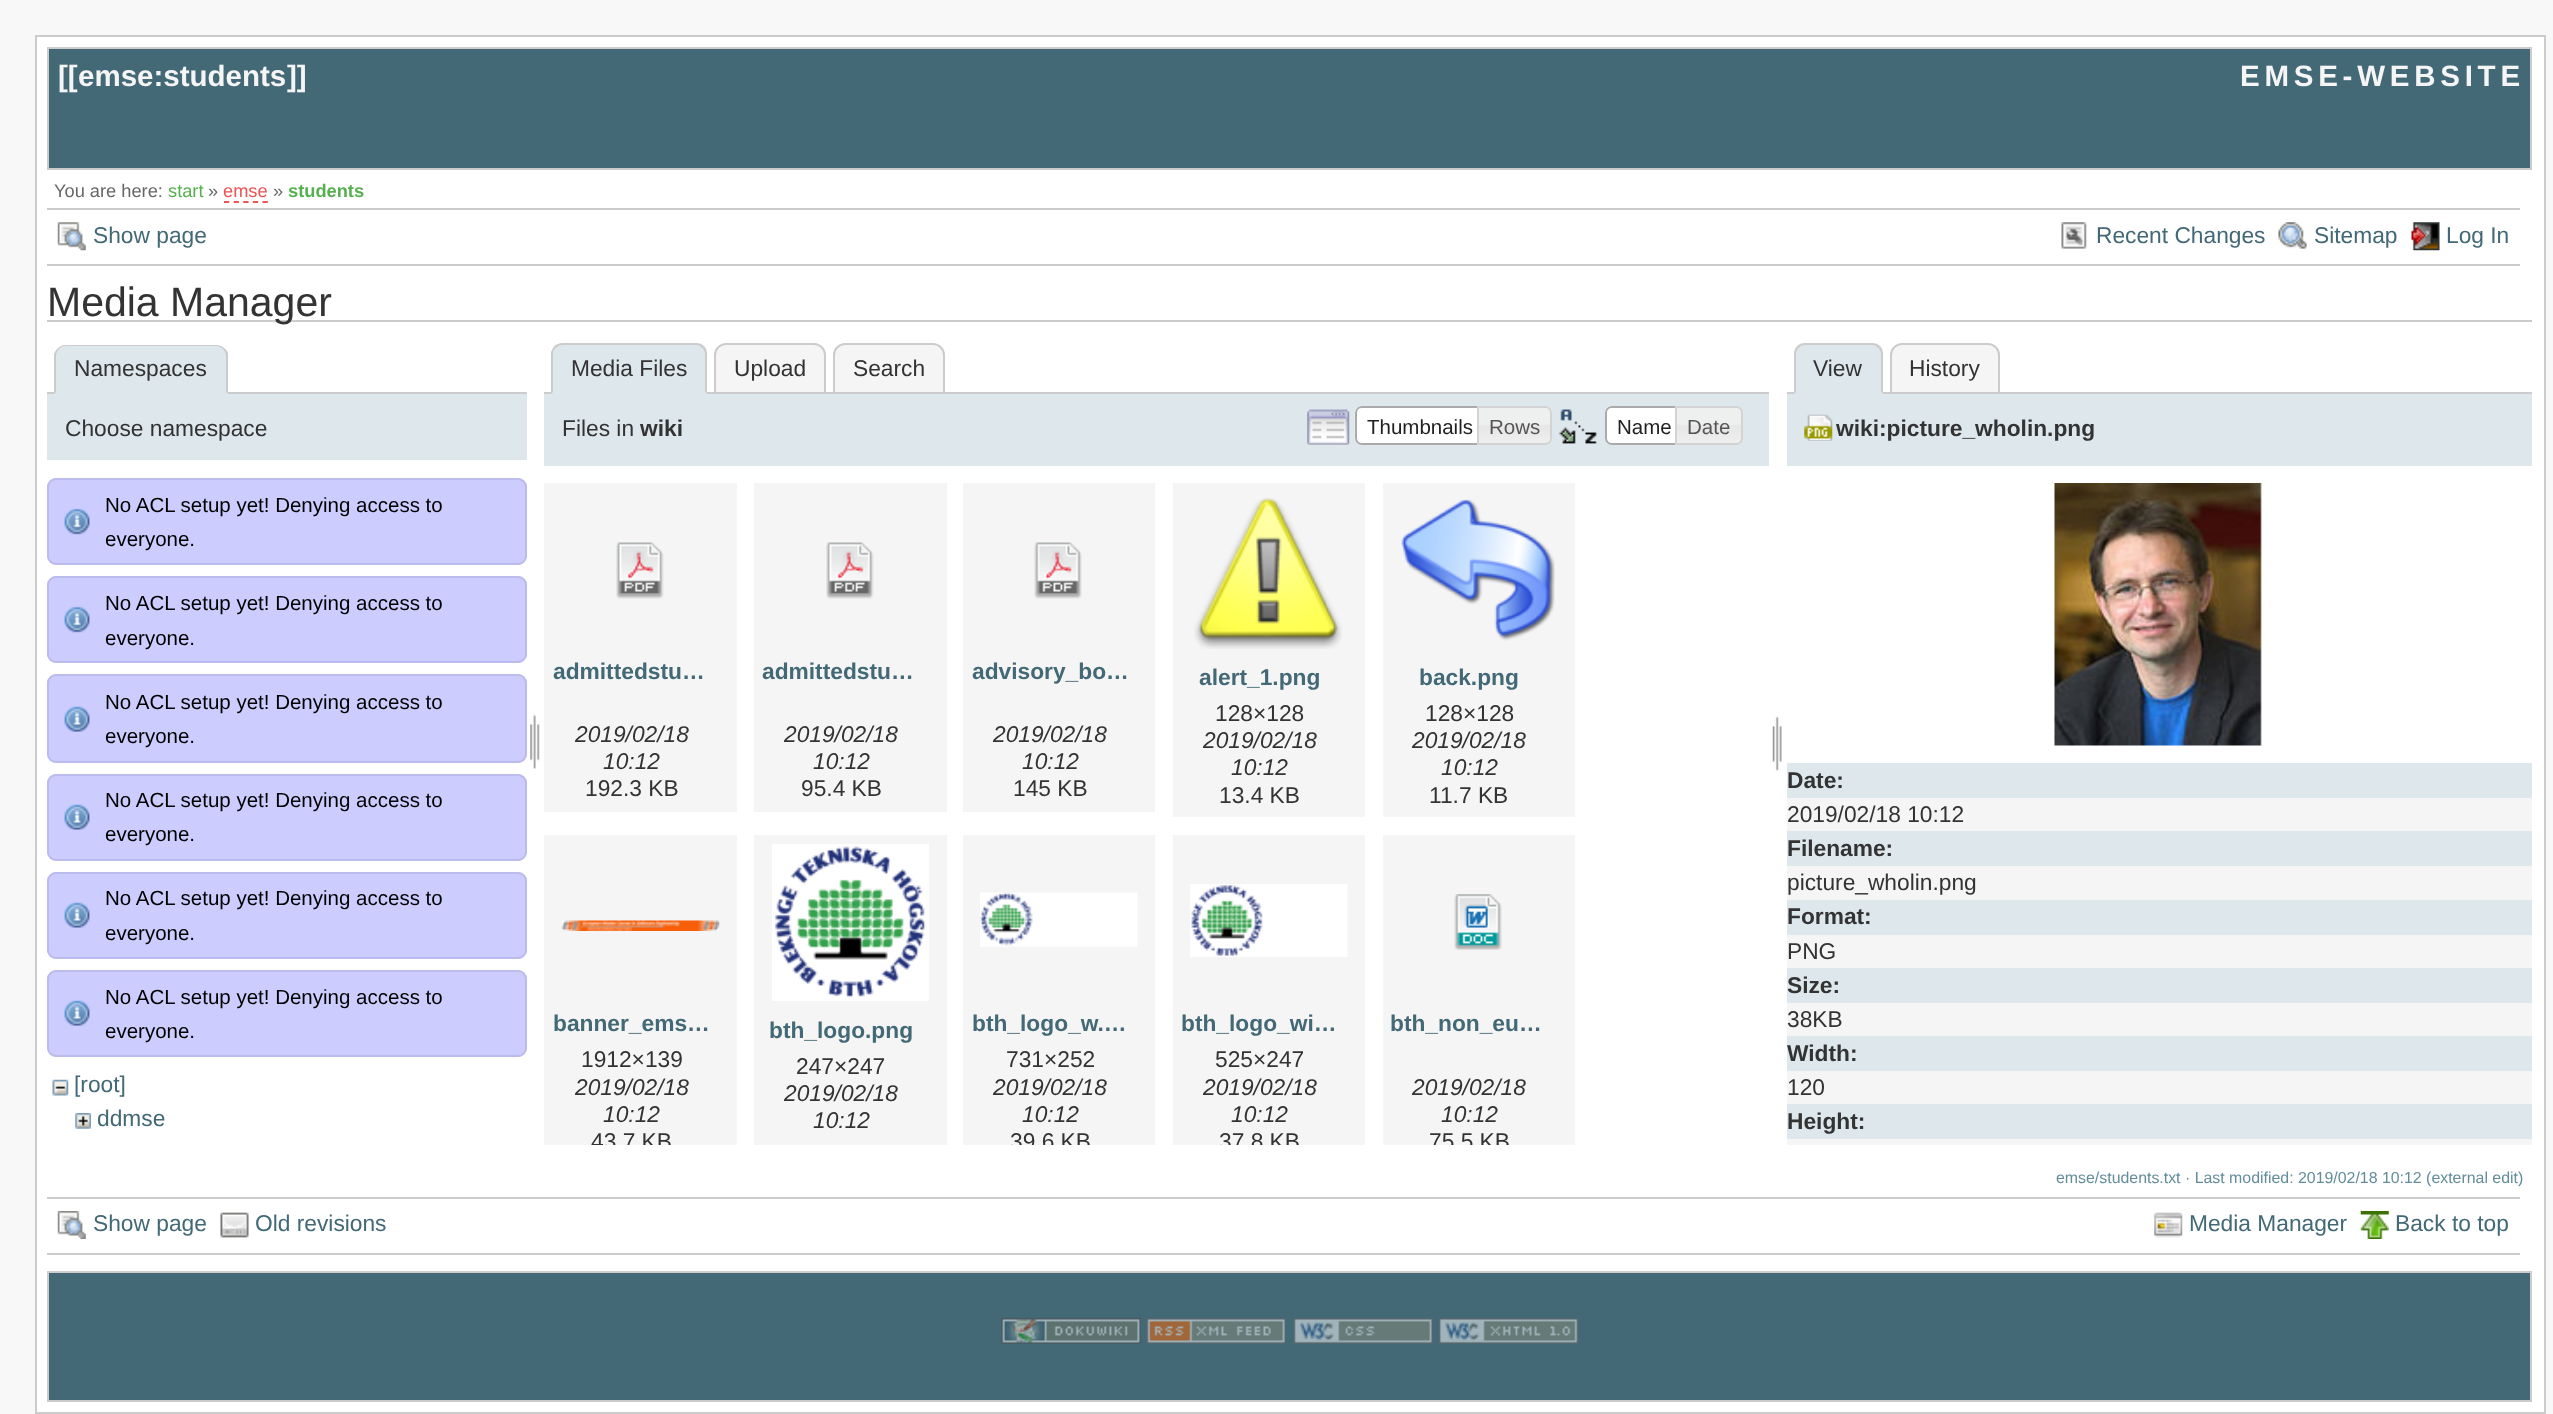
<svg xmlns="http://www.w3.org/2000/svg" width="2553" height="1414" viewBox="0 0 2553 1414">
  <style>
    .t1 { font: bold 29.5px Liberation Sans; fill: #f5f5f5; }
    .t2 { font: bold 29.5px Liberation Sans; letter-spacing: 4.75px; fill: #f5f5f5; }
    .t3 { font: 18.25px Liberation Sans; fill: #666; }
    .t4 { font: 18.25px Liberation Sans; fill: #56b04f; }
    .t5 { font: 18.25px Liberation Sans; fill: #ed5353; }
    .t6 { font: bold 18.25px Liberation Sans; fill: #56b04f; }
    .t7 { font: 22.75px Liberation Sans; fill: #436976; }
    .t8 { font: 41px Liberation Sans; fill: #333; }
    .t9 { font: 22.75px Liberation Sans; fill: #333; }
    .t10 { font: 20.5px Liberation Sans; fill: #000; }
    .t11 { font: bold 22.75px Liberation Sans; fill: #333; }
    .t12 { font: 20.5px Liberation Sans; fill: #212121; }
    .t13 { font: 20.5px Liberation Sans; fill: #555; }
    .t14 { font: bold 22.75px Liberation Sans; fill: #436976; }
    .t15 { font: italic 22.75px Liberation Sans; fill: #333; }
    .t16 { font: 15.9px Liberation Sans; fill: #638c9c; }
  </style>
  <defs>
    <clipPath id="clip1"><rect x="553" y="1129" width="158" height="16"/></clipPath>
    <clipPath id="clip2"><rect x="971" y="1129" width="158" height="16"/></clipPath>
    <clipPath id="clip3"><rect x="1181" y="1129" width="158" height="16"/></clipPath>
    <clipPath id="clip4"><rect x="1391" y="1129" width="158" height="16"/></clipPath>
  </defs>
  <rect width="100%" height="100%" fill="#f8f8f8"/>
  <rect x="36" y="36" width="2509" height="1377" fill="#fff" stroke="#ccc" stroke-width="2"/>
  <rect x="48" y="48" width="2483" height="121" fill="#436976" stroke="#ccc" stroke-width="2"/>
  <text x="58" y="86" class="t1">[[</text>
  <text x="78" y="86" class="t1">emse:students</text>
  <text x="287" y="86" class="t1">]]</text>
  <text x="2240" y="86" class="t2">EMSE-WEBSITE</text>
  <text x="54" y="197" class="t3">You are here:</text>
  <text x="168" y="197" class="t4">start</text>
  <text x="208" y="197" class="t3">»</text>
  <text x="223" y="197" class="t5">emse</text>
  <path d="M224 202H268" fill="none" stroke="#ed5353" stroke-width="1.8" stroke-dasharray="5.25 4.38"/>
  <text x="273" y="197" class="t3">»</text>
  <text x="288" y="197" class="t6">students</text>
  <rect x="47" y="208" width="2473" height="2" fill="#ccc"/>
  <rect x="47" y="264" width="2473" height="2" fill="#ccc"/>
  <image x="57" y="222" width="29" height="29" href="images/1.png"/>
  <text x="93" y="243" class="t7">Show page</text>
  <image x="2061" y="222" width="26" height="27" href="images/2.png"/>
  <text x="2096" y="243" class="t7">Recent Changes</text>
  <image x="2278" y="222" width="29" height="27" href="images/3.png"/>
  <text x="2314" y="243" class="t7">Sitemap</text>
  <image x="2411" y="222" width="29" height="29" href="images/4.png"/>
  <text x="2446" y="243" class="t7">Log In</text>
  <rect x="47" y="320" width="2485" height="2" fill="#ccc"/>
  <text x="47" y="316" class="t8">Media Manager</text>
  <rect x="47" y="392" width="480" height="2" fill="#ccc"/>
  <path d="M66 345H216C222.5 345 228 350.5 228 357V394H54V357C54 350.5 59.5 345 66 345Z" fill="#dee7ec"/>
  <path d="M66 345C63 345 60 346 58 348L59 349C60 347 63 346 66 346H216C219 346 221 347 223 349L224 348C222 346 219 345 216 345Z" fill="#ccc"/>
  <path d="M224 348C226 349 227 351 228 353V394L226 392V356C226 354 225 351 223 349Z" fill="#ccc"/>
  <path d="M228 394L226 392H56L54 394Z" fill="#dee7ec"/>
  <path d="M54 394L56 392V356C56 354 57 351 59 349L58 348C56 350 55 352 54 354Z" fill="#ccc"/>
  <text x="74" y="376" class="t9">Namespaces</text>
  <rect x="47" y="394" width="480" height="66" fill="#dee7ec"/>
  <text x="65" y="436" class="t9">Choose namespace</text>
  <rect x="47" y="478" width="480" height="87" rx="9" fill="#ccf"/>
  <image x="64" y="508" width="26" height="27" href="images/5.png"/>
  <rect x="48" y="479" width="478" height="85" rx="8" fill="none" stroke="#bbe" stroke-width="2"/>
  <text x="105" y="512" class="t10">No ACL setup yet! Denying access to</text>
  <text x="105" y="546" class="t10">everyone.</text>
  <rect x="47" y="576" width="480" height="87" rx="9" fill="#ccf"/>
  <image x="64" y="606" width="26" height="27" href="images/5.png"/>
  <rect x="48" y="577" width="478" height="85" rx="8" fill="none" stroke="#bbe" stroke-width="2"/>
  <text x="105" y="610" class="t10">No ACL setup yet! Denying access to</text>
  <text x="105" y="645" class="t10">everyone.</text>
  <rect x="47" y="674" width="480" height="89" rx="9" fill="#ccf"/>
  <image x="64" y="706" width="26" height="26" href="images/6.png"/>
  <rect x="48" y="675" width="478" height="87" rx="8" fill="none" stroke="#bbe" stroke-width="2"/>
  <text x="105" y="709" class="t10">No ACL setup yet! Denying access to</text>
  <text x="105" y="743" class="t10">everyone.</text>
  <rect x="47" y="774" width="480" height="87" rx="9" fill="#ccf"/>
  <image x="64" y="804" width="26" height="26" href="images/6.png"/>
  <rect x="48" y="775" width="478" height="85" rx="8" fill="none" stroke="#bbe" stroke-width="2"/>
  <text x="105" y="807" class="t10">No ACL setup yet! Denying access to</text>
  <text x="105" y="841" class="t10">everyone.</text>
  <rect x="47" y="872" width="480" height="87" rx="9" fill="#ccf"/>
  <image x="64" y="902" width="26" height="26" href="images/6.png"/>
  <rect x="48" y="873" width="478" height="85" rx="8" fill="none" stroke="#bbe" stroke-width="2"/>
  <text x="105" y="905" class="t10">No ACL setup yet! Denying access to</text>
  <text x="105" y="940" class="t10">everyone.</text>
  <rect x="47" y="970" width="480" height="87" rx="9" fill="#ccf"/>
  <image x="64" y="1000" width="26" height="26" href="images/6.png"/>
  <rect x="48" y="971" width="478" height="85" rx="8" fill="none" stroke="#bbe" stroke-width="2"/>
  <text x="105" y="1004" class="t10">No ACL setup yet! Denying access to</text>
  <text x="105" y="1038" class="t10">everyone.</text>
  <image x="52" y="1079" width="17" height="17" href="images/7.png"/>
  <text x="74" y="1092" class="t7">[root]</text>
  <image x="75" y="1113" width="16" height="16" href="images/8.png"/>
  <text x="97" y="1126" class="t7">ddmse</text>
  <image x="530" y="714" width="10" height="55" href="images/9.png"/>
  <path d="M726 344H814C820 344 825 349 825 355V393H715V355C715 349 720 344 726 344Z" fill="#f5f5f5" stroke="#ccc" stroke-width="2"/>
  <path d="M845 344H933C939 344 944 349 944 355V393H834V355C834 349 839 344 845 344Z" fill="#f5f5f5" stroke="#ccc" stroke-width="2"/>
  <rect x="544" y="392" width="1225" height="2" fill="#ccc"/>
  <path d="M563 343H695C701.5 343 707 348.5 707 355V394H551V355C551 348.5 556.5 343 563 343Z" fill="#dee7ec"/>
  <path d="M563 343C560 343 557 344 554 346L556 348C558 346 560 345 563 345H696C698 345 701 346 702 348L704 346C702 344 699 343 696 343Z" fill="#ccc"/>
  <path d="M707 394V354C707 351 706 348 704 346L702 348C704 349 705 352 705 354V392Z" fill="#ccc"/>
  <path d="M707 394L705 392H553L551 394Z" fill="#dee7ec"/>
  <path d="M551 394V352C552 350 553 348 554 346L556 348C554 349 553 351 553 354V392Z" fill="#ccc"/>
  <text x="571" y="376" class="t9">Media Files</text>
  <text x="734" y="376" class="t9">Upload</text>
  <text x="853" y="376" class="t9">Search</text>
  <rect x="544" y="394" width="1225" height="72" fill="#dee7ec"/>
  <text x="562" y="436" class="t9">Files in</text>
  <text x="640" y="436" class="t11">wiki</text>
  <image x="1307" y="409" width="43" height="36" href="images/10.png"/>
  <path d="M1362 406H1486V445H1362C1358 445 1355 442 1355 438V413C1355 409 1358 406 1362 406Z" fill="#fff"/>
  <image x="1354" y="406" width="7" height="37" href="images/11.png"/>
  <path d="M1362 407H1485V444H1362C1358.5 444 1356 441.5 1356 438V413C1356 409.5 1358.5 407 1362 407Z" fill="none" stroke="#aaa" stroke-width="2"/>
  <text x="1367" y="434" class="t12">Thumbnails</text>
  <image x="1479" y="406" width="73" height="38" href="images/12.png"/>
  <path d="M1478 407H1545C1548.5 407 1551 409.5 1551 413V438C1551 441.5 1548.5 444 1545 444H1478Z" fill="none" stroke="#d3d3d3" stroke-width="2"/>
  <text x="1489" y="434" class="t13">Rows</text>
  <image x="1558" y="409" width="39" height="35" href="images/13.png"/>
  <path d="M1612 406H1684V445H1612C1608 445 1605 442 1605 438V413C1605 409 1608 406 1612 406Z" fill="#fff"/>
  <image x="1605" y="406" width="6" height="37" href="images/14.png"/>
  <path d="M1612 407H1683V444H1612C1608.5 444 1606 441.5 1606 438V413C1606 409.5 1608.5 407 1612 407Z" fill="none" stroke="#aaa" stroke-width="2"/>
  <text x="1617" y="434" class="t12">Name</text>
  <image x="1674" y="406" width="69" height="38" href="images/15.png"/>
  <path d="M1676 407H1736C1739.5 407 1742 409.5 1742 413V438C1742 441.5 1739.5 444 1736 444H1676Z" fill="none" stroke="#d3d3d3" stroke-width="2"/>
  <text x="1687" y="434" class="t13">Date</text>
  <rect x="544" y="483" width="193" height="329" fill="#f5f5f5"/>
  <image x="616" y="542" width="48" height="57" href="images/16.png"/>
  <text x="553" y="679" class="t14">admittedstu…</text>
  <text x="575" y="742" class="t15">2019/02/18</text>
  <text x="603" y="769" class="t15">10:12</text>
  <text x="585" y="796" class="t9">192.3 KB</text>
  <rect x="754" y="483" width="193" height="329" fill="#f5f5f5"/>
  <image x="826" y="542" width="48" height="57" href="images/16.png"/>
  <text x="762" y="679" class="t14">admittedstu…</text>
  <text x="784" y="742" class="t15">2019/02/18</text>
  <text x="813" y="769" class="t15">10:12</text>
  <text x="801" y="796" class="t9">95.4 KB</text>
  <rect x="963" y="483" width="192" height="329" fill="#f5f5f5"/>
  <image x="1034" y="542" width="48" height="57" href="images/17.png"/>
  <text x="972" y="679" class="t14">advisory_bo…</text>
  <text x="993" y="742" class="t15">2019/02/18</text>
  <text x="1022" y="769" class="t15">10:12</text>
  <text x="1013" y="796" class="t9">145 KB</text>
  <rect x="1173" y="483" width="192" height="334" fill="#f5f5f5"/>
  <image x="1194" y="498" width="148" height="151" href="images/18.png"/>
  <text x="1199" y="685" class="t14">alert_1.png</text>
  <text x="1215" y="721" class="t9">128×128</text>
  <text x="1203" y="748" class="t15">2019/02/18</text>
  <text x="1231" y="775" class="t15">10:12</text>
  <text x="1219" y="803" class="t9">13.4 KB</text>
  <rect x="1383" y="483" width="192" height="334" fill="#f5f5f5"/>
  <image x="1401" y="499" width="154" height="142" href="images/19.png"/>
  <text x="1419" y="685" class="t14">back.png</text>
  <text x="1425" y="721" class="t9">128×128</text>
  <text x="1412" y="748" class="t15">2019/02/18</text>
  <text x="1441" y="775" class="t15">10:12</text>
  <text x="1429" y="803" class="t9">11.7 KB</text>
  <rect x="544" y="835" width="193" height="310" fill="#f5f5f5"/>
  <image x="561" y="920" width="159" height="11" href="images/20.png"/>
  <text x="553" y="1031" class="t14">banner_ems…</text>
  <text x="581" y="1067" class="t9">1912×139</text>
  <text x="575" y="1095" class="t15">2019/02/18</text>
  <text x="603" y="1122" class="t15">10:12</text>
  <g clip-path="url(#clip1)">
    <text x="591" y="1149" class="t9">43.7 KB</text>
  </g>
  <rect x="754" y="835" width="193" height="310" fill="#f5f5f5"/>
  <image x="772" y="844" width="157" height="157" href="images/21.png"/>
  <text x="769" y="1038" class="t14">bth_logo.png</text>
  <text x="796" y="1074" class="t9">247×247</text>
  <text x="784" y="1101" class="t15">2019/02/18</text>
  <text x="813" y="1128" class="t15">10:12</text>
  <rect x="963" y="835" width="192" height="310" fill="#f5f5f5"/>
  <image x="980" y="892" width="158" height="55" href="images/22.png"/>
  <text x="972" y="1031" class="t14">bth_logo_w.…</text>
  <text x="1006" y="1067" class="t9">731×252</text>
  <text x="993" y="1095" class="t15">2019/02/18</text>
  <text x="1022" y="1122" class="t15">10:12</text>
  <g clip-path="url(#clip2)">
    <text x="1010" y="1149" class="t9">39.6 KB</text>
  </g>
  <rect x="1173" y="835" width="192" height="310" fill="#f5f5f5"/>
  <image x="1190" y="884" width="158" height="73" href="images/23.png"/>
  <text x="1181" y="1031" class="t14">bth_logo_wi…</text>
  <text x="1215" y="1067" class="t9">525×247</text>
  <text x="1203" y="1095" class="t15">2019/02/18</text>
  <text x="1231" y="1122" class="t15">10:12</text>
  <g clip-path="url(#clip3)">
    <text x="1219" y="1149" class="t9">37.8 KB</text>
  </g>
  <rect x="1383" y="835" width="192" height="310" fill="#f5f5f5"/>
  <image x="1454" y="894" width="48" height="56" href="images/24.png"/>
  <text x="1390" y="1031" class="t14">bth_non_eu…</text>
  <text x="1412" y="1095" class="t15">2019/02/18</text>
  <text x="1441" y="1122" class="t15">10:12</text>
  <g clip-path="url(#clip4)">
    <text x="1429" y="1149" class="t9">75.5 KB</text>
  </g>
  <image x="1772" y="716" width="10" height="55" href="images/25.png"/>
  <path d="M1902 344H1988C1994 344 1999 349 1999 355V393H1891V355C1891 349 1896 344 1902 344Z" fill="#f5f5f5" stroke="#ccc" stroke-width="2"/>
  <rect x="1787" y="392" width="745" height="2" fill="#ccc"/>
  <path d="M1806 343H1871C1877.5 343 1883 348.5 1883 355V394H1794V355C1794 348.5 1799.5 343 1806 343Z" fill="#dee7ec"/>
  <path d="M1805 343C1802 343 1799 344 1797 346L1799 348C1800 346 1802 345 1805 345H1872C1874 345 1877 346 1878 348L1880 346C1878 344 1875 343 1872 343Z" fill="#ccc"/>
  <path d="M1883 394V354C1883 351 1882 348 1880 346L1878 348C1880 349 1881 352 1881 354V392Z" fill="#ccc"/>
  <path d="M1883 394H1794L1796 392H1881Z" fill="#dee7ec"/>
  <path d="M1797 346C1795 348 1794 351 1794 354V394L1796 392V354C1796 352 1797 349 1799 348Z" fill="#ccc"/>
  <text x="1813" y="376" class="t9">View</text>
  <text x="1909" y="376" class="t9">History</text>
  <rect x="1787" y="394" width="745" height="72" fill="#dee7ec"/>
  <image x="1804" y="414" width="29" height="27" href="images/26.png"/>
  <text x="1836" y="436" class="t11">wiki:picture_wholin.png</text>
  <image x="2054" y="483" width="208" height="263" href="images/27.png"/>
  <rect x="1787" y="763" width="745" height="35" fill="#dee7ec"/>
  <text x="1787" y="788" class="t11">Date:</text>
  <rect x="1787" y="798" width="745" height="33" fill="#f5f5f5"/>
  <text x="1787" y="822" class="t9">2019/02/18 10:12</text>
  <rect x="1787" y="831" width="745" height="35" fill="#dee7ec"/>
  <text x="1787" y="856" class="t11">Filename:</text>
  <rect x="1787" y="866" width="745" height="34" fill="#f5f5f5"/>
  <text x="1787" y="890" class="t9">picture_wholin.png</text>
  <rect x="1787" y="900" width="745" height="35" fill="#dee7ec"/>
  <text x="1787" y="924" class="t11">Format:</text>
  <rect x="1787" y="935" width="745" height="33" fill="#f5f5f5"/>
  <text x="1787" y="959" class="t9">PNG</text>
  <rect x="1787" y="968" width="745" height="35" fill="#dee7ec"/>
  <text x="1787" y="993" class="t11">Size:</text>
  <rect x="1787" y="1003" width="745" height="33" fill="#f5f5f5"/>
  <text x="1787" y="1027" class="t9">38KB</text>
  <rect x="1787" y="1036" width="745" height="35" fill="#dee7ec"/>
  <text x="1787" y="1061" class="t11">Width:</text>
  <rect x="1787" y="1071" width="745" height="33" fill="#f5f5f5"/>
  <text x="1787" y="1095" class="t9">120</text>
  <rect x="1787" y="1104" width="745" height="35" fill="#dee7ec"/>
  <text x="1787" y="1129" class="t11">Height:</text>
  <rect x="1787" y="1139" width="745" height="6" fill="#f5f5f5"/>
  <text x="2056" y="1183" class="t16">emse/students.txt · Last modified: 2019/02/18 10:12 (external edit)</text>
  <rect x="47" y="1197" width="2473" height="2" fill="#ccc"/>
  <rect x="47" y="1253" width="2473" height="2" fill="#ccc"/>
  <image x="57" y="1211" width="29" height="28" href="images/28.png"/>
  <text x="93" y="1231" class="t7">Show page</text>
  <image x="220" y="1212" width="29" height="26" href="images/29.png"/>
  <text x="255" y="1231" class="t7">Old revisions</text>
  <image x="2154" y="1212" width="29" height="26" href="images/30.png"/>
  <text x="2189" y="1231" class="t7">Media Manager</text>
  <image x="2360" y="1211" width="29" height="28" href="images/31.png"/>
  <text x="2395" y="1231" class="t7">Back to top</text>
  <rect x="48" y="1272" width="2483" height="129" fill="#436976" stroke="#ccc" stroke-width="2"/>
  <image x="1001" y="1317" width="140" height="27" href="images/32.png"/>
  <image x="1146" y="1318" width="140" height="26" href="images/33.png"/>
  <image x="1293" y="1318" width="140" height="26" href="images/34.png"/>
  <image x="1438" y="1318" width="141" height="26" href="images/35.png"/>
</svg>
